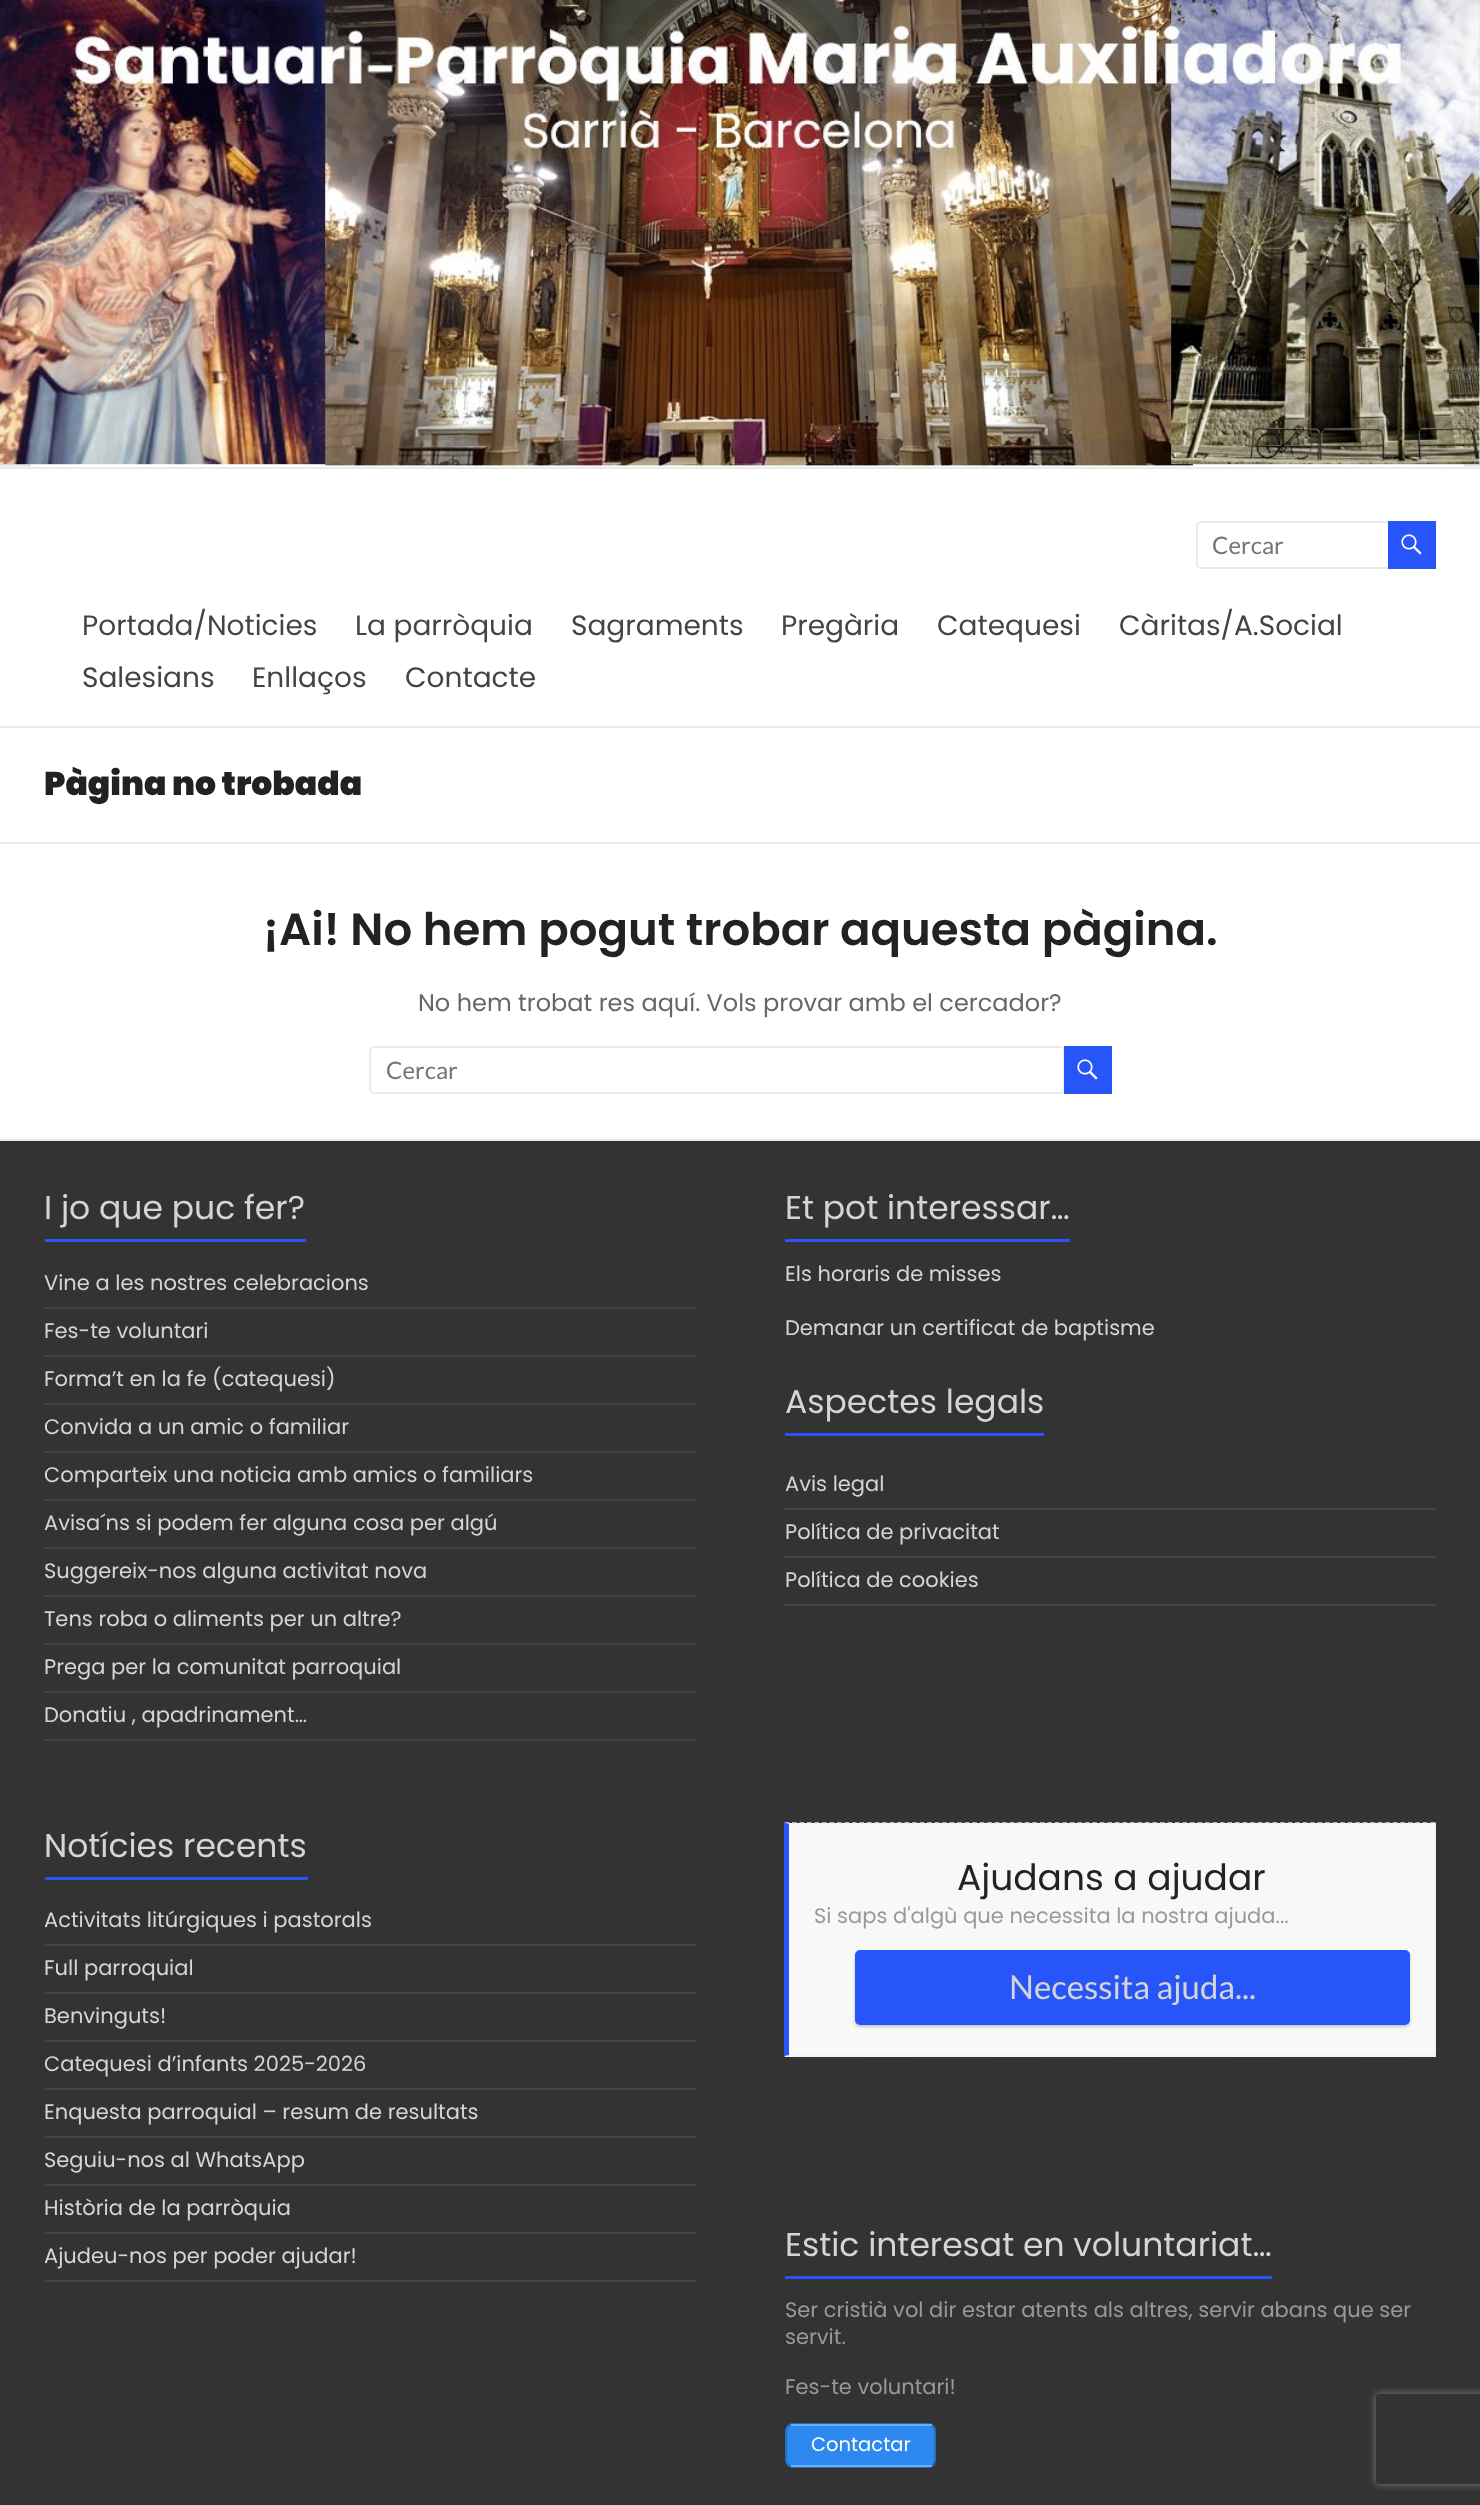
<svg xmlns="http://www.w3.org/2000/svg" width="1480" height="2505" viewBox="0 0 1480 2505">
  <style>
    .t1 { font: 24px Lato; fill: #757575; }
    .t2 { font: 28px Poppins; fill: #444; }
    .t3 { font: 900 33px Poppins; fill: #222; }
    .t4 { font: 600 45px Poppins; fill: #222; }
    .t5 { font: 24px Poppins; fill: #666; }
    .t6 { font: 33px Poppins; fill: #d5d5d5; }
    .t7 { font: 21px Poppins; fill: #d5d5d5; }
    .t8 { font: 36px Poppins; fill: #222; }
    .t9 { font: 21px Poppins; fill: #999; }
    .t10 { font: 33px Lato; fill: #d5d5d5; }
    .t11 { font: 19.5px Poppins; fill: #fff; }
  </style>
  <defs>
    <clipPath id="clip1"><path d="M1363 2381H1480V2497H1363ZM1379 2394H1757C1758.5 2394 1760 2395.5 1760 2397V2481C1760 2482.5 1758.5 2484 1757 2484H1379C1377.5 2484 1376 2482.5 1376 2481V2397C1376 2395.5 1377.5 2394 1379 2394Z" clip-rule="evenodd"/></clipPath>
  </defs>
  <rect width="100%" height="100%" fill="#fff"/>
  <image x="0" y="0" width="1480" height="467" href="images/1.png"/>
  <rect x="0" y="467" width="1480" height="2" fill="#eaeaea"/>
  <rect x="0" y="726" width="1480" height="2" fill="#eaeaea"/>
  <rect x="1197" y="522" width="193" height="46" rx="4" fill="none" stroke="#eaeaea" stroke-width="2"/>
  <text x="1212" y="554" class="t1">Cercar</text>
  <rect x="1388" y="521" width="48" height="48" fill="#2755f9"/>
  <image x="1401" y="534" width="21" height="21" href="images/2.png"/>
  <text x="82" y="635" class="t2">Portada/Noticies</text>
  <text x="355" y="635" class="t2">La parròquia</text>
  <text x="571" y="635" class="t2">Sagraments</text>
  <text x="781" y="635" class="t2">Pregària</text>
  <text x="937" y="635" class="t2">Catequesi</text>
  <text x="1119" y="635" class="t2">Càritas/A.Social</text>
  <text x="82" y="687" class="t2">Salesians</text>
  <text x="252" y="687" class="t2">Enllaços</text>
  <text x="405" y="687" class="t2">Contacte</text>
  <rect x="0" y="842" width="1480" height="2" fill="#eaeaea"/>
  <text x="44" y="795" class="t3">Pàgina no trobada</text>
  <text x="263" y="945" class="t4">¡Ai! No hem pogut trobar aquesta pàgina.</text>
  <text x="418" y="1011" class="t5">No hem trobat res aquí. Vols provar amb el cercador?</text>
  <rect x="370" y="1047" width="694" height="46" rx="4" fill="none" stroke="#eaeaea" stroke-width="2"/>
  <text x="386" y="1079" class="t1">Cercar</text>
  <rect x="1064" y="1046" width="48" height="48" fill="#2755f9"/>
  <image x="1077" y="1059" width="21" height="21" href="images/2.png"/>
  <rect x="0" y="1141" width="1480" height="1364" fill="#333"/>
  <rect x="0" y="1139" width="1480" height="2" fill="#eaeaea"/>
  <text x="44" y="1219" class="t6">I jo que puc fer?</text>
  <rect x="45" y="1239" width="261" height="3" fill="#2755f9"/>
  <rect x="45" y="1307" width="651" height="2" fill="#444"/>
  <text x="44" y="1290" class="t7">Vine a les nostres celebracions</text>
  <rect x="45" y="1355" width="651" height="2" fill="#444"/>
  <text x="44" y="1338" class="t7">Fes-te voluntari</text>
  <rect x="45" y="1403" width="651" height="2" fill="#444"/>
  <text x="44" y="1386" class="t7">Forma’t en la fe (catequesi)</text>
  <rect x="45" y="1451" width="651" height="2" fill="#444"/>
  <text x="44" y="1434" class="t7">Convida a un amic o familiar</text>
  <rect x="45" y="1499" width="651" height="2" fill="#444"/>
  <text x="44" y="1482" class="t7">Comparteix una noticia amb amics o familiars</text>
  <rect x="45" y="1547" width="651" height="2" fill="#444"/>
  <text x="44" y="1530" class="t7">Avisa´ns si podem fer alguna cosa per algú</text>
  <rect x="45" y="1595" width="651" height="2" fill="#444"/>
  <text x="44" y="1578" class="t7">Suggereix-nos alguna activitat nova</text>
  <rect x="45" y="1643" width="651" height="2" fill="#444"/>
  <text x="44" y="1626" class="t7">Tens roba o aliments per un altre?</text>
  <rect x="45" y="1691" width="651" height="2" fill="#444"/>
  <text x="44" y="1674" class="t7">Prega per la comunitat parroquial</text>
  <rect x="45" y="1739" width="651" height="2" fill="#444"/>
  <text x="44" y="1722" class="t7">Donatiu , apadrinament…</text>
  <text x="785" y="1219" class="t6">Et pot interessar…</text>
  <rect x="785" y="1239" width="285" height="3" fill="#2755f9"/>
  <text x="785" y="1281" class="t7">Els horaris de misses</text>
  <text x="785" y="1335" class="t7">Demanar un certificat de baptisme</text>
  <text x="785" y="1413" class="t6">Aspectes legals</text>
  <rect x="785" y="1433" width="259" height="3" fill="#2755f9"/>
  <rect x="785" y="1508" width="651" height="2" fill="#444"/>
  <text x="785" y="1491" class="t7">Avis legal</text>
  <rect x="785" y="1556" width="651" height="2" fill="#444"/>
  <text x="785" y="1539" class="t7">Política de privacitat</text>
  <rect x="785" y="1604" width="651" height="2" fill="#444"/>
  <text x="785" y="1587" class="t7">Política de cookies</text>
  <text x="44" y="1857" class="t6">Notícies recents</text>
  <rect x="45" y="1877" width="263" height="3" fill="#2755f9"/>
  <rect x="45" y="1944" width="651" height="2" fill="#444"/>
  <text x="44" y="1927" class="t7">Activitats litúrgiques i pastorals</text>
  <rect x="45" y="1992" width="651" height="2" fill="#444"/>
  <text x="44" y="1975" class="t7">Full parroquial</text>
  <rect x="45" y="2040" width="651" height="2" fill="#444"/>
  <text x="44" y="2023" class="t7">Benvinguts!</text>
  <rect x="45" y="2088" width="651" height="2" fill="#444"/>
  <text x="44" y="2071" class="t7">Catequesi d’infants 2025-2026</text>
  <rect x="45" y="2136" width="651" height="2" fill="#444"/>
  <text x="44" y="2119" class="t7">Enquesta parroquial – resum de resultats</text>
  <rect x="45" y="2184" width="651" height="2" fill="#444"/>
  <text x="44" y="2167" class="t7">Seguiu-nos al WhatsApp</text>
  <rect x="45" y="2232" width="651" height="2" fill="#444"/>
  <text x="44" y="2215" class="t7">Història de la parròquia</text>
  <rect x="45" y="2280" width="651" height="2" fill="#444"/>
  <text x="44" y="2263" class="t7">Ajudeu-nos per poder ajudar!</text>
  <rect x="785" y="1823" width="651" height="234" fill="#f8f8f8"/>
  <path d="M784.5 1823H1435.5" fill="none" stroke="#eaeaea" stroke-width="1.5" stroke-dasharray="4.5 3.01"/>
  <path d="M1435 1822.5V2056.5" fill="none" stroke="#eaeaea" stroke-width="1.5" stroke-dasharray="4.5 2.91"/>
  <path d="M784.5 2056H1435.5" fill="none" stroke="#eaeaea" stroke-width="1.5" stroke-dasharray="4.5 3.01"/>
  <path d="M784 2056V1822L789 1824V2055Z" fill="#2755f9"/>
  <text x="957" y="1890" class="t8">Ajudans a ajudar</text>
  <text x="814" y="1923" class="t9">Si saps d'algù que necessita la nostra ajuda...</text>
  <rect x="855" y="1952" width="555" height="75" rx="5" fill="#00000033" filter="blur(1.5px)"/>
  <rect x="855" y="1950" width="555" height="75" rx="5" fill="#2755f9"/>
  <text x="1009" y="1999" class="t10">Necessita ajuda...</text>
  <text x="785" y="2256" class="t6">Estic interesat en voluntariat…</text>
  <rect x="785" y="2276" width="487" height="3" fill="#2755f9"/>
  <text x="785" y="2317" class="t9">Ser cristià vol dir estar atents als altres, servir abans que ser</text>
  <text x="785" y="2344" class="t9">servit.</text>
  <text x="785" y="2394" class="t9">Fes-te voluntari!</text>
  <rect x="786" y="2424" width="149" height="43" rx="7" fill="#2d89ef" stroke="#246ec0" stroke-width="2"/>
  <rect x="791" y="2424" width="141" height="2" fill="#6cadf4"/>
  <rect x="791" y="2465" width="141" height="2" fill="#6cadf4"/>
  <text x="811" y="2451" class="t11">Contactar</text>
  <g clip-path="url(#clip1)">
    <rect x="1376" y="2394" width="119" height="90" rx="3" fill="#808080" filter="blur(4px)"/>
  </g>
</svg>
